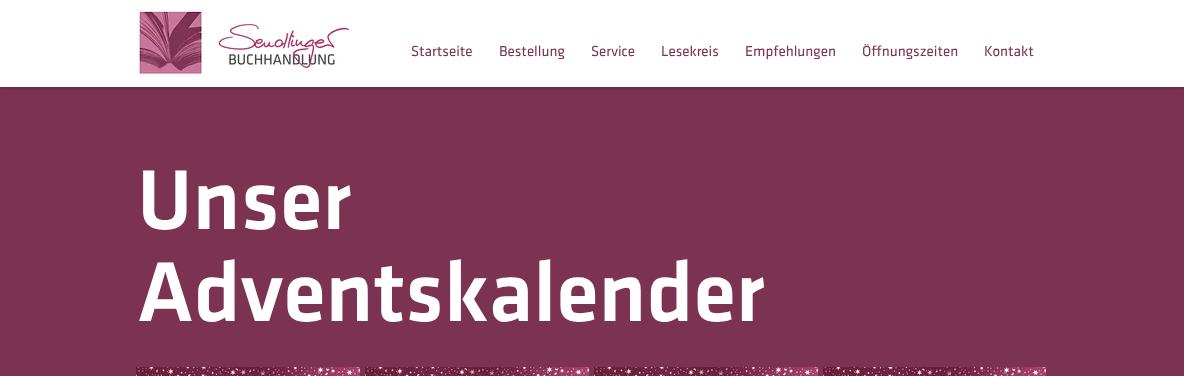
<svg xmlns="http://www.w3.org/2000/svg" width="1184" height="376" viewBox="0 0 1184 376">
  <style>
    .t1 { font: 15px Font; fill: #7c3351; }
    .t2 { font: 500 88px Font; fill: #fff; }
  </style>
  <rect width="100%" height="100%" fill="#7c3351"/>
  <rect x="0" y="0" width="1184" height="87" fill="#00000052" filter="blur(2.5px)"/>
  <rect x="0" y="0" width="1184" height="87" fill="#fff"/>
  <image x="137" y="9" width="67" height="67" href="images/1.png"/>
  <image x="218" y="23" width="131" height="45" href="images/2.png"/>
  <text x="411" y="56" class="t1">Startseite</text>
  <text x="499" y="56" class="t1">Bestellung</text>
  <text x="591" y="56" class="t1">Service</text>
  <text x="661" y="56" class="t1">Lesekreis</text>
  <text x="745" y="56" class="t1">Empfehlungen</text>
  <text x="862" y="56" class="t1">Öffnungszeiten</text>
  <text x="984" y="56" class="t1">Kontakt</text>
  <text x="137" y="229" class="t2">Unser</text>
  <text x="137" y="321" class="t2">Adventskalender</text>
  <image x="136" y="367" width="224" height="9" href="images/3.png"/>
  <image x="365" y="367" width="224" height="9" href="images/4.png"/>
  <image x="594" y="367" width="224" height="9" href="images/3.png"/>
  <image x="823" y="367" width="223" height="9" href="images/5.png"/>
</svg>
